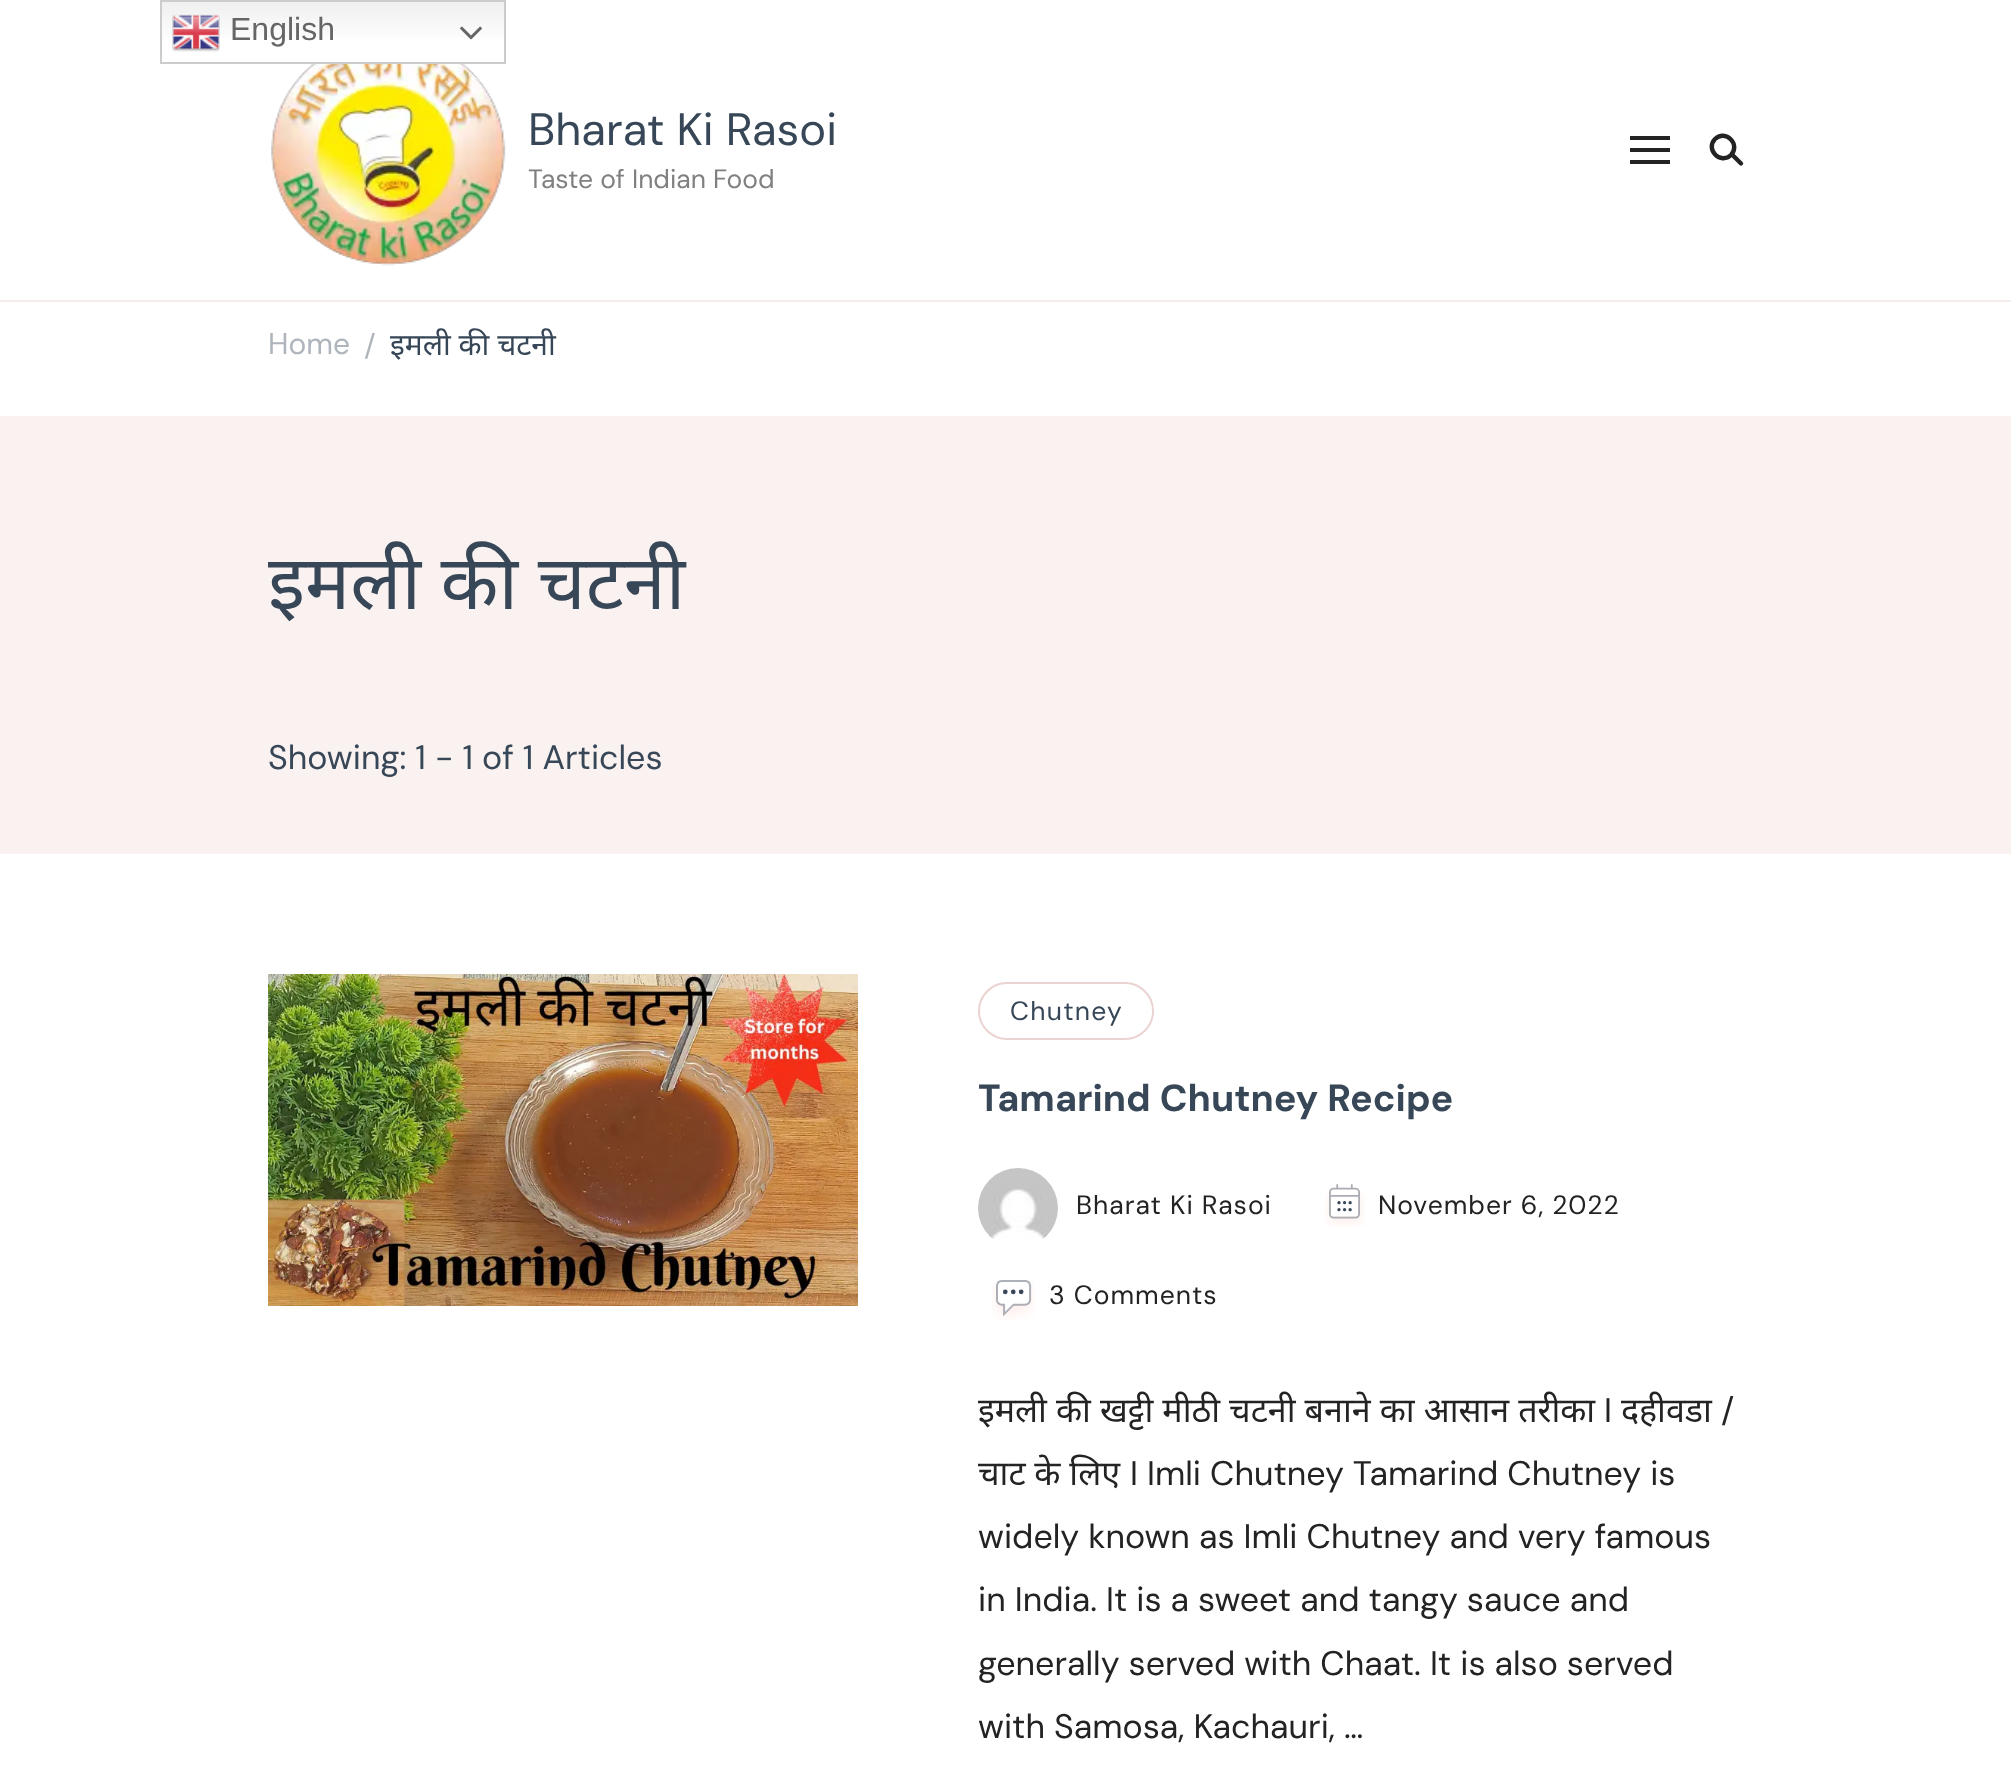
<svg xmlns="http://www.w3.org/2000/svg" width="2011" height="1789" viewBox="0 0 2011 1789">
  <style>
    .t1 { font: 32px Liberation Sans; fill: #666; }
    .t2 { font: 45.25px DM Sans; fill: #374757; }
    .t3 { font: 26.5px DM Sans; fill: #808080; }
    .t4 { font: 30px DM Sans; fill: #afb5bc; }
    .t5 { font: 30px Noto Sans; fill: #374757; }
    .t6 { font: 75.5px Noto Sans; fill: #374757; }
    .t7 { font: 34px DM Sans; fill: #374757; }
    .t8 { font: 26.5px DM Sans; letter-spacing: 1.25px; fill: #374757; }
    .t9 { font: bold 37.75px DM Sans; fill: #374757; }
    .t10 { font: 26.5px DM Sans; letter-spacing: 1px; fill: #232323; }
    .t11 { font: 34px Noto Sans; fill: #232323; }
    .t12 { font: 34px DM Sans; fill: #232323; }
  </style>
  <defs>
    <linearGradient id="g1" gradientUnits="userSpaceOnUse" x1="333" y1="0" x2="333" y2="64"><stop offset="0" stop-color="#efefef"/><stop offset="0.7" stop-color="#fff"/></linearGradient>
  </defs>
  <rect width="100%" height="100%" fill="#fff"/>
  <rect x="162" y="2" width="342" height="36" fill="url(#g1)"/>
  <rect x="161" y="1" width="344" height="62" fill="none" stroke="#ccc" stroke-width="2"/>
  <image x="172" y="14" width="48" height="38" href="images/1.png"/>
  <text x="230" y="40" class="t1">English</text>
  <image x="460" y="26" width="22" height="14" href="images/2.png"/>
  <rect x="0" y="300" width="2011" height="2" fill="#f7eeec"/>
  <image x="271" y="64" width="235" height="202" href="images/3.png"/>
  <text x="528" y="145" class="t2">Bharat Ki Rasoi</text>
  <text x="528" y="188" class="t3">Taste of Indian Food</text>
  <rect x="1630" y="136" width="40" height="4" fill="#232323"/>
  <rect x="1630" y="148" width="40" height="4" fill="#232323"/>
  <rect x="1630" y="160" width="40" height="4" fill="#232323"/>
  <path d="M1715 139C1725.5 129 1741 144.5 1731 155C1720.5 165 1705 149.5 1715 139Z" fill="none" stroke="#232323" stroke-width="4.4"/>
  <path d="M1732.5 155L1741 163.5" fill="none" stroke="#232323" stroke-width="4.4" stroke-linecap="round"/>
  <text x="268" y="354" class="t4">Home</text>
  <text x="364" y="356" class="t4">/</text>
  <text x="390" y="355" class="t5">इमली की चटनी</text>
  <rect x="0" y="416" width="2011" height="438" fill="#faf2f1"/>
  <text x="268" y="609" class="t6">इमली की चटनी</text>
  <text x="268" y="769" class="t7">Showing: 1 - 1 of 1 Articles</text>
  <image x="268" y="974" width="590" height="332" href="images/4.png"/>
  <rect x="979" y="983" width="174" height="56" rx="28" fill="none" stroke="#ebd3d1" stroke-width="2"/>
  <text x="1010" y="1020" class="t8">Chutney</text>
  <text x="978" y="1111" class="t9">Tamarind Chutney Recipe</text>
  <image x="978" y="1168" width="80" height="71" href="images/5.png"/>
  <text x="1076" y="1214" class="t10">Bharat Ki Rasoi</text>
  <image x="1325" y="1184" width="40" height="43" href="images/6.png"/>
  <text x="1378" y="1214" class="t10">November 6, 2022</text>
  <image x="992" y="1280" width="43" height="40" href="images/7.png"/>
  <text x="1049" y="1304" class="t10">3 Comments</text>
  <text x="978" y="1422" word-spacing="0.25" class="t11">इमली की खट्टी मीठी चटनी बनाने का आसान तरीका</text>
  <text x="1604" y="1422" class="t12">I</text>
  <text x="1621" y="1422" class="t11">दहीवडा</text>
  <text x="1721" y="1422" class="t12">/</text>
  <text x="978" y="1485" class="t11">चाट के लिए</text>
  <text x="1130" y="1485" class="t12">I Imli Chutney Tamarind Chutney is</text>
  <text x="978" y="1548" class="t12">widely known as Imli Chutney and very famous</text>
  <text x="978" y="1611" class="t12">in India. It is a sweet and tangy sauce and</text>
  <text x="978" y="1675" class="t12">generally served with Chaat. It is also served</text>
  <text x="978" y="1738" class="t12">with Samosa, Kachauri, …</text>
</svg>
